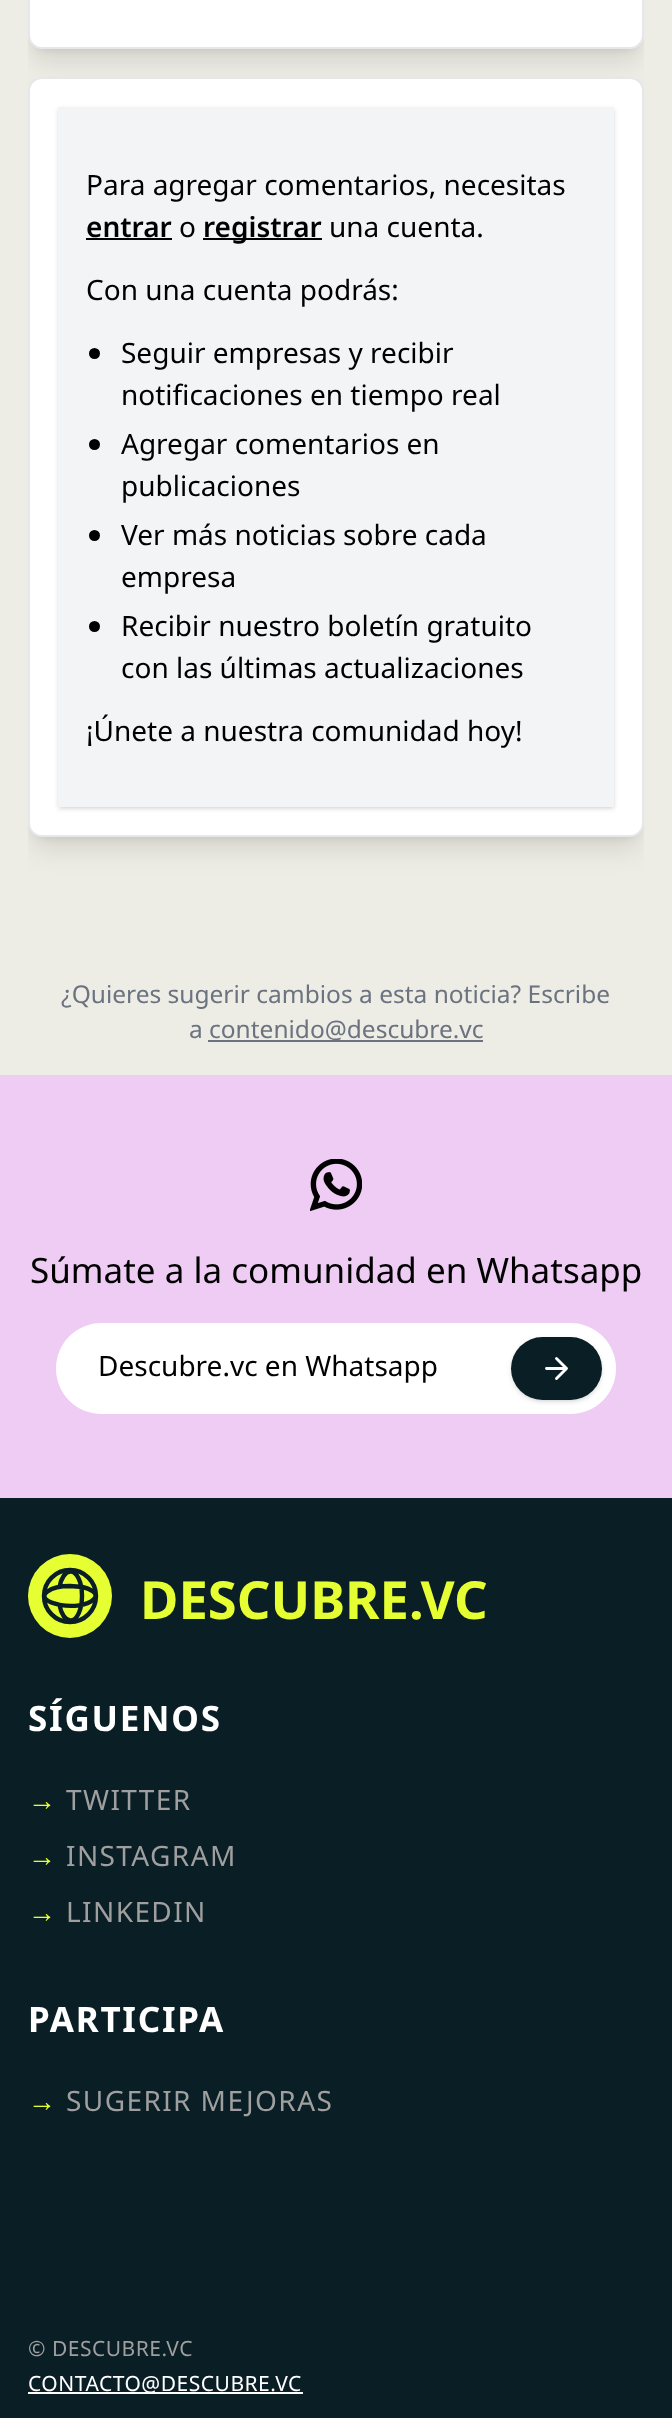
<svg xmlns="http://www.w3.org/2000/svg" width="672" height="2418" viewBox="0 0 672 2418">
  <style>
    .t1 { font: 28px Noto Sans; fill: #000; }
    .t2 { font: 600 28px Noto Sans; fill: #000; }
    .t3 { font: 24.5px Noto Sans; fill: #6b7280; }
    .t4 { font: 35px Noto Sans; fill: #000; }
    .t5 { font: bold 52.5px Noto Sans; fill: #e6ff32; }
    .t6 { font: bold 35px Noto Sans; letter-spacing: 1.75px; fill: #fff; }
    .t7 { font: 28px Liberation Sans; letter-spacing: 1.4px; fill: #e6ff32; }
    .t8 { font: 28px Noto Sans; letter-spacing: 1.4px; fill: #9f9f9f; }
    .t9 { font: 21px Noto Sans; letter-spacing: 0.5px; fill: #9f9f9f; }
    .t10 { font: 21px Noto Sans; letter-spacing: 0.5px; fill: #fff; }
  </style>
  <defs>
    <clipPath id="clip1"><rect x="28" y="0" width="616" height="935"/></clipPath>
  </defs>
  <rect width="100%" height="100%" fill="#edede5"/>
  <rect x="35" y="-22" width="602" height="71" rx="7" fill="#0000001a" filter="blur(5px)"/>
  <g clip-path="url(#clip1)">
    <rect x="33" y="-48" width="606" height="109" rx="9" fill="#0000001a" filter="blur(13px)"/>
  </g>
  <rect x="29" y="-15" width="614" height="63" rx="13" fill="#fff" stroke="#e5e7eb" stroke-width="2"/>
  <rect x="35" y="91" width="602" height="746" rx="7" fill="#0000001a" filter="blur(5px)"/>
  <g clip-path="url(#clip1)">
    <rect x="33" y="100" width="606" height="749" rx="9" fill="#0000001a" filter="blur(13px)"/>
  </g>
  <rect x="29" y="78" width="614" height="758" rx="13" fill="#fff" stroke="#e5e7eb" stroke-width="2"/>
  <rect x="60" y="110" width="553" height="697" fill="#0000001a" filter="blur(2px)"/>
  <rect x="58" y="109" width="556" height="700" fill="#0000001a" filter="blur(2.5px)"/>
  <rect x="58" y="107" width="556" height="700" fill="#f3f4f6"/>
  <text x="86" y="195" class="t1">Para agregar comentarios, necesitas</text>
  <text x="86" y="237" class="t2">entrar</text>
  <rect x="86" y="238" width="86" height="2" fill="#000"/>
  <text x="179" y="237" class="t1">o</text>
  <rect x="203" y="238" width="119" height="2" fill="#000"/>
  <text x="203" y="237" class="t2">registrar</text>
  <text x="329" y="237" class="t1">una cuenta.</text>
  <text x="86" y="300" class="t1">Con una cuenta podrás:</text>
  <circle cx="94.5" cy="353.5" r="5.5" fill="#000"/>
  <text x="121" y="363" class="t1">Seguir empresas y recibir</text>
  <text x="121" y="405" class="t1">notificaciones en tiempo real</text>
  <circle cx="94.5" cy="444.5" r="5.5" fill="#000"/>
  <text x="121" y="454" class="t1">Agregar comentarios en</text>
  <text x="121" y="496" class="t1">publicaciones</text>
  <circle cx="94.5" cy="535.5" r="5.5" fill="#000"/>
  <text x="121" y="545" class="t1">Ver más noticias sobre cada</text>
  <text x="121" y="587" class="t1">empresa</text>
  <circle cx="94.5" cy="626.5" r="5.5" fill="#000"/>
  <text x="121" y="636" class="t1">Recibir nuestro boletín gratuito</text>
  <text x="121" y="678" class="t1">con las últimas actualizaciones</text>
  <text x="86" y="741" class="t1">¡Únete a nuestra comunidad hoy!</text>
  <text x="61" y="1003" class="t3">¿Quieres sugerir cambios a esta noticia? Escribe</text>
  <text x="189" y="1038" class="t3">a</text>
  <rect x="208" y="1040" width="275" height="2" fill="#6b7280"/>
  <text x="209" y="1038" class="t3">contenido@descubre.vc</text>
  <rect x="0" y="1498" width="672" height="920" fill="#0a1e25"/>
  <rect x="0" y="1075" width="672" height="423" fill="#efccf4"/>
  <image x="310" y="1159" width="52" height="52" href="images/1.png"/>
  <text x="30" y="1283" class="t4">Súmate a la comunidad en Whatsapp</text>
  <rect x="56" y="1323" width="560" height="91" rx="45.5" fill="#fff"/>
  <text x="98" y="1376" class="t1">Descubre.vc en Whatsapp</text>
  <rect x="513" y="1341" width="87" height="59" rx="29.5" fill="#0000001a" filter="blur(2px)"/>
  <rect x="511" y="1339" width="91" height="63" rx="31.5" fill="#0000001a" filter="blur(2.5px)"/>
  <rect x="511" y="1337" width="91" height="63" rx="31.5" fill="#0a1e25"/>
  <path d="M546.5 1368.5H566.5M556.5 1358.5L566.5 1368.5L556.5 1378.5" fill="none" stroke="#fff" stroke-width="2.9" stroke-linecap="round" stroke-linejoin="round"/>
  <circle cx="70" cy="1596" r="42" fill="#e6ff32"/>
  <circle cx="70" cy="1596" r="26" fill="none" stroke="#0a1e25" stroke-width="4.4"/>
  <path d="M59.5 1587C61 1578 65.5 1571.5 70.5 1571.5C77 1571.5 82 1582.5 82 1596C82 1609.5 77 1620.5 70.5 1620.5C65.5 1620.5 61 1614 59.5 1605M70 1586L82.5 1587C86.5 1588 100.5 1592.5 94 1599C81 1613 31 1603 47.5 1591.5C53.5 1587 62.5 1586 70 1586Z" fill="none" stroke="#0a1e25" stroke-width="4.4"/>
  <text x="140" y="1619" class="t5">DESCUBRE.VC</text>
  <text x="28" y="1731" class="t6">SÍGUENOS</text>
  <text x="28" y="1810" class="t7">→</text>
  <text x="66" y="1810" class="t8">TWITTER</text>
  <text x="28" y="1866" class="t7">→</text>
  <text x="66" y="1866" class="t8">INSTAGRAM</text>
  <text x="28" y="1922" class="t7">→</text>
  <text x="66" y="1922" class="t8">LINKEDIN</text>
  <text x="28" y="2032" class="t6">PARTICIPA</text>
  <text x="28" y="2111" class="t7">→</text>
  <text x="66" y="2111" class="t8">SUGERIR MEJORAS</text>
  <text x="28" y="2356" class="t9">© DESCUBRE.VC</text>
  <rect x="28" y="2392" width="275" height="2" fill="#fff"/>
  <text x="28" y="2391" class="t10">CONTACTO@DESCUBRE.VC</text>
</svg>
